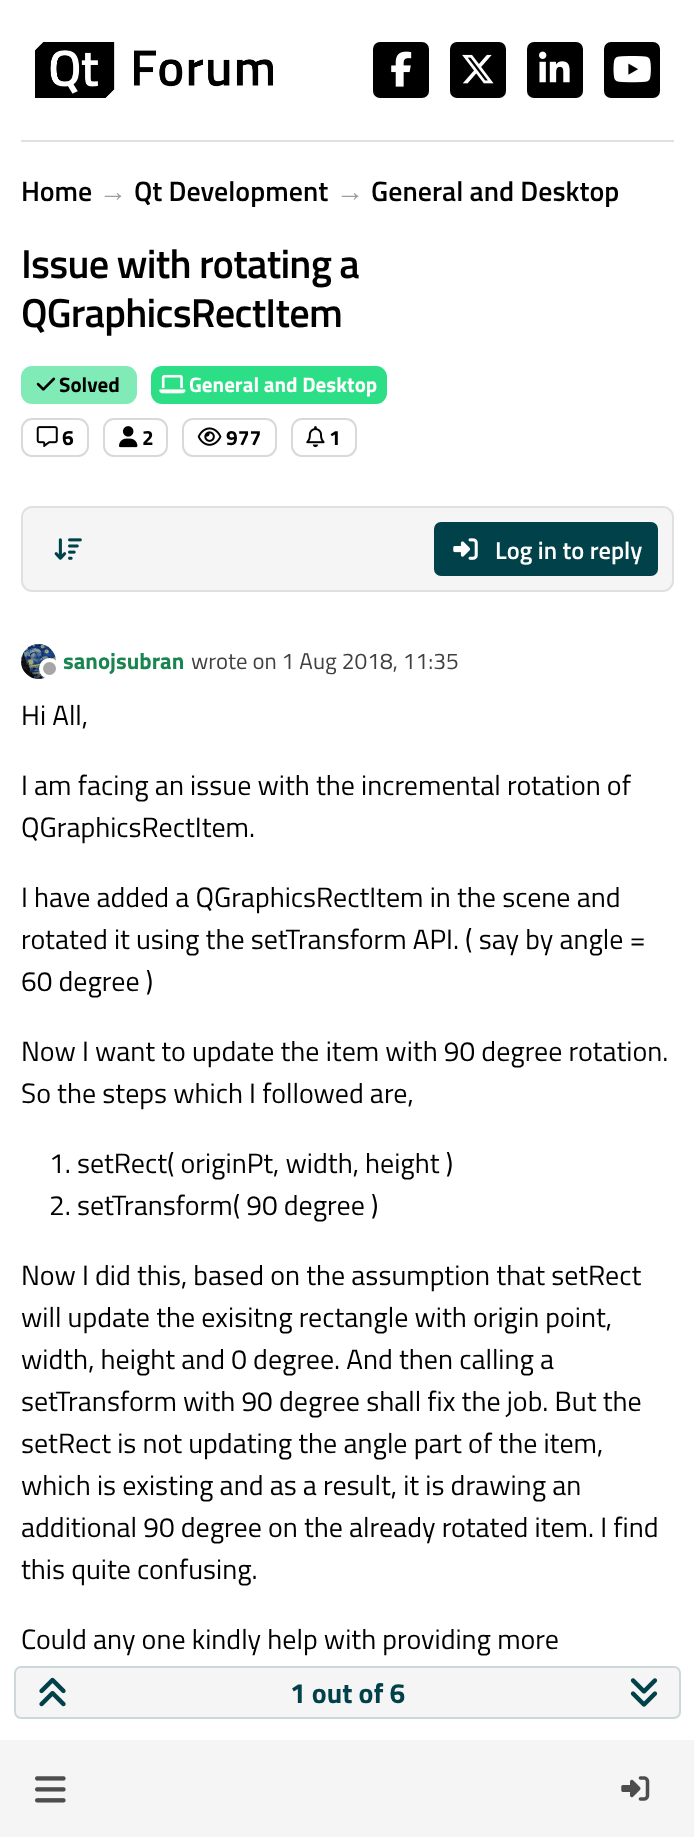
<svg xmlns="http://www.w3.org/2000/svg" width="694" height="1837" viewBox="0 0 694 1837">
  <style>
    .t1 { font: 600 28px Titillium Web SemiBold; fill: #000; }
    .t2 { font: bold 28px Liberation Sans; fill: #9e9e9e; }
    .t3 { font: 600 40.5px Titillium Web SemiBold; letter-spacing: -0.8px; fill: #000; }
    .t4 { font: bold 21px Titillium Web; fill: #000; }
    .t5 { font: bold 21px Titillium Web; fill: #fff; }
    .t6 { font: 600 24.5px Titillium Web SemiBold; fill: #fff; }
    .t7 { font: bold 22.75px Titillium Web; fill: #1a8550; }
    .t8 { font: 22.75px Titillium Web; fill: #404040; }
    .t9 { font: 28px Titillium Web; fill: #000; }
    .t10 { font: bold 28px Titillium Web; fill: #00414a; }
  </style>
  <rect width="100%" height="100%" fill="#fff"/>
  <rect x="21" y="140" width="653" height="2" fill="#e0e0e0"/>
  <image x="35" y="42" width="238" height="56" href="images/1.png"/>
  <rect x="373" y="42" width="56" height="56" rx="7" fill="#000"/>
  <image x="391" y="51" width="21" height="36" href="images/2.png"/>
  <rect x="450" y="42" width="56" height="56" rx="7" fill="#000"/>
  <image x="462" y="54" width="32" height="30" href="images/3.png"/>
  <rect x="527" y="42" width="56" height="56" rx="7" fill="#000"/>
  <image x="539" y="51" width="31" height="32" href="images/4.png"/>
  <rect x="604" y="42" width="56" height="56" rx="7" fill="#000"/>
  <image x="613" y="56" width="38" height="27" href="images/5.png"/>
  <text x="21" y="201" class="t1">Home</text>
  <text x="99" y="201" class="t2">→</text>
  <text x="134" y="201" class="t1">Qt Development</text>
  <text x="336" y="201" class="t2">→</text>
  <text x="371" y="201" class="t1">General and Desktop</text>
  <text x="21" y="278" class="t3">Issue with rotating a</text>
  <text x="21" y="327" class="t3">QGraphicsRectItem</text>
  <rect x="22" y="367" width="114" height="36" rx="10" fill="#80ebb6" stroke="#80ebb6" stroke-width="2"/>
  <image x="36" y="377" width="20" height="14" href="images/6.png"/>
  <text x="59" y="392" class="t4">Solved</text>
  <rect x="152" y="367" width="234" height="36" rx="10" fill="#2cde85" stroke="#2cde85" stroke-width="2"/>
  <image x="159" y="374" width="27" height="20" href="images/7.png"/>
  <text x="189" y="392" class="t5">General and Desktop</text>
  <rect x="22" y="419" width="66" height="37" rx="10" fill="none" stroke="#d9d9d9" stroke-width="2"/>
  <image x="36" y="426" width="22" height="22" href="images/8.png"/>
  <text x="62" y="445" class="t4">6</text>
  <rect x="104" y="419" width="63" height="37" rx="10" fill="none" stroke="#d9d9d9" stroke-width="2"/>
  <image x="119" y="426" width="19" height="22" href="images/9.png"/>
  <text x="142" y="445" class="t4">2</text>
  <rect x="183" y="419" width="93" height="37" rx="10" fill="none" stroke="#d9d9d9" stroke-width="2"/>
  <image x="197" y="427" width="25" height="19" href="images/10.png"/>
  <text x="226" y="445" class="t4">977</text>
  <rect x="292" y="419" width="64" height="37" rx="10" fill="none" stroke="#d9d9d9" stroke-width="2"/>
  <image x="306" y="426" width="19" height="22" href="images/11.png"/>
  <text x="329" y="445" class="t4">1</text>
  <rect x="22" y="507" width="651" height="84" rx="10" fill="#f5f5f5" stroke="#e0e0e0" stroke-width="2"/>
  <image x="54" y="538" width="28" height="22" href="images/12.png"/>
  <rect x="435" y="523" width="222" height="52" rx="6" fill="#00414a" stroke="#00414a" stroke-width="2"/>
  <image x="453" y="538" width="25" height="22" href="images/13.png"/>
  <text x="495" y="559" class="t6">Log in to reply</text>
  <image x="21" y="644" width="35" height="35" href="images/14.png"/>
  <circle cx="49.5" cy="668.5" r="8.5" fill="#a6a6a6" stroke="#fff" stroke-width="4"/>
  <text x="63" y="669" class="t7">sanojsubran</text>
  <text x="191" y="669" class="t8">wrote on 1 Aug 2018, 11:35</text>
  <text x="21" y="725" class="t9">Hi All,</text>
  <text x="21" y="795" class="t9">I am facing an issue with the incremental rotation of</text>
  <text x="21" y="837" class="t9">QGraphicsRectItem.</text>
  <text x="21" y="907" class="t9">I have added a QGraphicsRectItem in the scene and</text>
  <text x="21" y="949" class="t9">rotated it using the setTransform API. ( say by angle =</text>
  <text x="21" y="991" class="t9">60 degree )</text>
  <text x="21" y="1061" class="t9">Now I want to update the item with 90 degree rotation.</text>
  <text x="21" y="1103" class="t9">So the steps which I followed are,</text>
  <text x="49" y="1173" class="t9">1. setRect( originPt, width, height )</text>
  <text x="49" y="1215" class="t9">2. setTransform( 90 degree )</text>
  <text x="21" y="1285" class="t9">Now I did this, based on the assumption that setRect</text>
  <text x="21" y="1327" class="t9">will update the exisitng rectangle with origin point,</text>
  <text x="21" y="1369" class="t9">width, height and 0 degree. And then calling a</text>
  <text x="21" y="1411" class="t9">setTransform with 90 degree shall fix the job. But the</text>
  <text x="21" y="1453" class="t9">setRect is not updating the angle part of the item,</text>
  <text x="21" y="1495" class="t9">which is existing and as a result, it is drawing an</text>
  <text x="21" y="1537" class="t9">additional 90 degree on the already rotated item. I find</text>
  <text x="21" y="1579" class="t9">this quite confusing.</text>
  <text x="21" y="1649" class="t9">Could any one kindly help with providing more</text>
  <rect x="15" y="1667" width="665" height="51" rx="6" fill="#f5f5f5" stroke="#ccd9db" stroke-width="2"/>
  <image x="39" y="1677" width="27" height="30" href="images/15.png"/>
  <text x="290" y="1703" class="t10">1 out of 6</text>
  <image x="630" y="1678" width="28" height="29" href="images/16.png"/>
  <rect x="0" y="1740" width="694" height="97" fill="#f5f5f5"/>
  <image x="35" y="1776" width="31" height="27" href="images/17.png"/>
  <image x="621" y="1776" width="29" height="25" href="images/18.png"/>
</svg>
